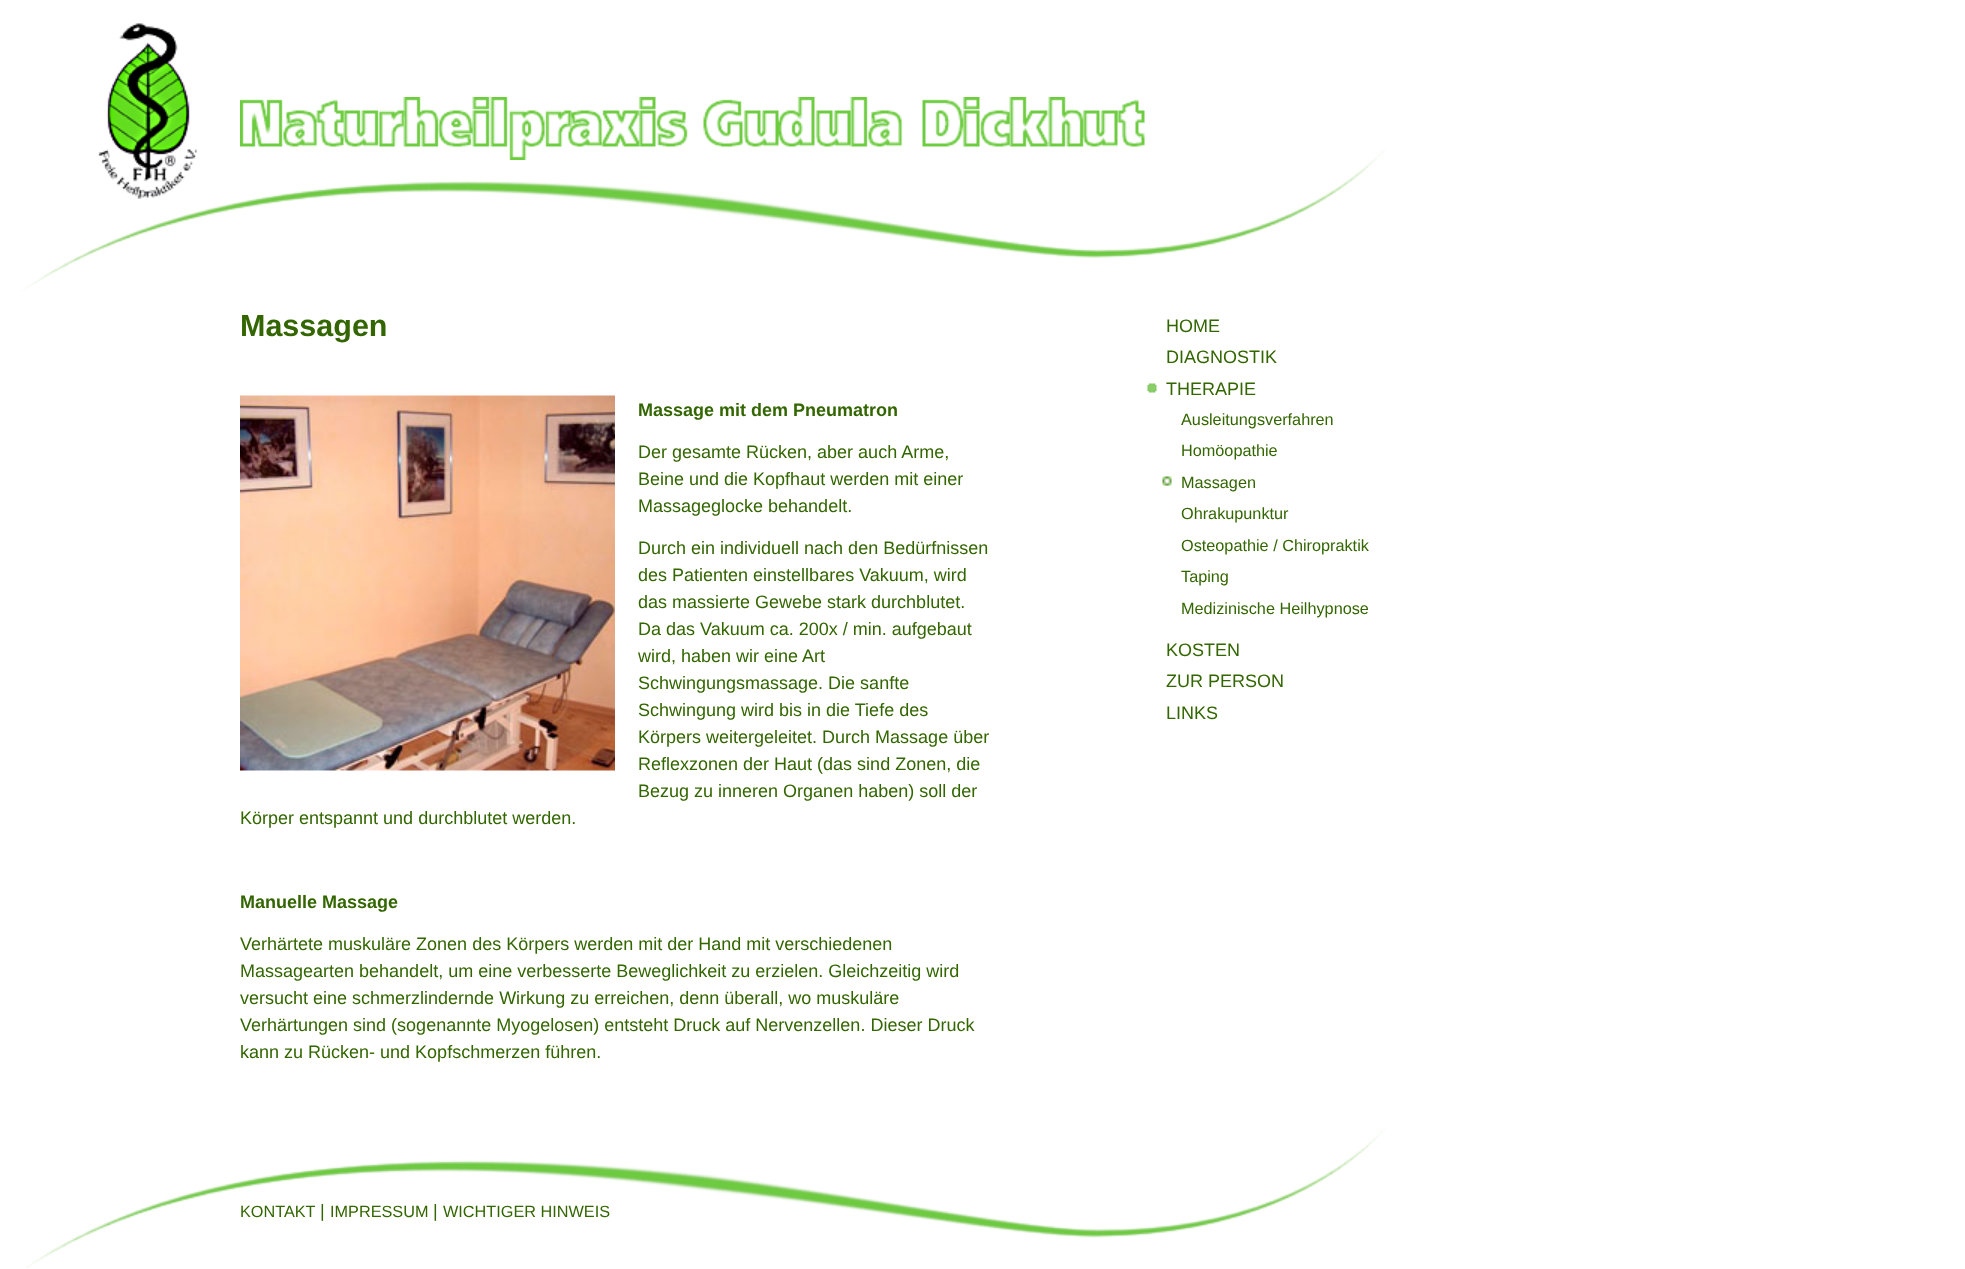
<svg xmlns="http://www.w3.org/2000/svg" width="1965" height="1269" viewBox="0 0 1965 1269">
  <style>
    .t1 { font: bold 30.5px Liberation Sans; fill: #360; }
    .t2 { font: bold 18px Liberation Sans; fill: #360; }
    .t3 { font: 18px Liberation Sans; fill: #360; }
    .t4 { font: 16.25px Liberation Sans; fill: #360; }
  </style>
  <rect width="100%" height="100%" fill="#fff"/>
  <image x="21" y="147" width="1366" height="145" href="images/1.png"/>
  <image x="98" y="23" width="100" height="176" href="images/2.png"/>
  <image x="240" y="97" width="905" height="63" href="images/3.png"/>
  <text x="240" y="336" class="t1">Massagen</text>
  <image x="240" y="395" width="375" height="376" href="images/4.png"/>
  <text x="638" y="416" class="t2">Massage mit dem Pneumatron</text>
  <text x="638" y="458" class="t3">Der gesamte Rücken, aber auch Arme,</text>
  <text x="638" y="485" class="t3">Beine und die Kopfhaut werden mit einer</text>
  <text x="638" y="512" class="t3">Massageglocke behandelt.</text>
  <text x="638" y="554" class="t3">Durch ein individuell nach den Bedürfnissen</text>
  <text x="638" y="581" class="t3">des Patienten einstellbares Vakuum, wird</text>
  <text x="638" y="608" class="t3">das massierte Gewebe stark durchblutet.</text>
  <text x="638" y="635" class="t3">Da das Vakuum ca. 200x / min. aufgebaut</text>
  <text x="638" y="662" class="t3">wird, haben wir eine Art</text>
  <text x="638" y="689" class="t3">Schwingungsmassage. Die sanfte</text>
  <text x="638" y="716" class="t3">Schwingung wird bis in die Tiefe des</text>
  <text x="638" y="743" class="t3">Körpers weitergeleitet. Durch Massage über</text>
  <text x="638" y="770" class="t3">Reflexzonen der Haut (das sind Zonen, die</text>
  <text x="638" y="797" class="t3">Bezug zu inneren Organen haben) soll der</text>
  <text x="240" y="824" class="t3">Körper entspannt und durchblutet werden.</text>
  <text x="240" y="908" class="t2">Manuelle Massage</text>
  <text x="240" y="950" class="t3">Verhärtete muskuläre Zonen des Körpers werden mit der Hand mit verschiedenen</text>
  <text x="240" y="977" class="t3">Massagearten behandelt, um eine verbesserte Beweglichkeit zu erzielen. Gleichzeitig wird</text>
  <text x="240" y="1004" class="t3">versucht eine schmerzlindernde Wirkung zu erreichen, denn überall, wo muskuläre</text>
  <text x="240" y="1031" class="t3">Verhärtungen sind (sogenannte Myogelosen) entsteht Druck auf Nervenzellen. Dieser Druck</text>
  <text x="240" y="1058" class="t3">kann zu Rücken- und Kopfschmerzen führen.</text>
  <text x="1166" y="332" class="t3">HOME</text>
  <text x="1166" y="363" class="t3">DIAGNOSTIK</text>
  <image x="1147" y="383" width="10" height="10" href="images/5.png"/>
  <text x="1166" y="395" class="t3">THERAPIE</text>
  <text x="1181" y="425" class="t4">Ausleitungsverfahren</text>
  <text x="1181" y="456" class="t4">Homöopathie</text>
  <image x="1162" y="476" width="10" height="10" href="images/6.png"/>
  <text x="1181" y="488" class="t4">Massagen</text>
  <text x="1181" y="519" class="t4">Ohrakupunktur</text>
  <text x="1181" y="551" class="t4">Osteopathie / Chiropraktik</text>
  <text x="1181" y="582" class="t4">Taping</text>
  <text x="1181" y="614" class="t4">Medizinische Heilhypnose</text>
  <text x="1166" y="656" class="t3">KOSTEN</text>
  <text x="1166" y="687" class="t3">ZUR PERSON</text>
  <text x="1166" y="719" class="t3">LINKS</text>
  <image x="25" y="1128" width="1361" height="140" href="images/7.png"/>
  <text x="240" y="1217" class="t4">KONTAKT</text>
  <text x="320" y="1217" class="t3">|</text>
  <text x="330" y="1217" class="t4">IMPRESSUM</text>
  <text x="433" y="1217" class="t3">|</text>
  <text x="443" y="1217" class="t4">WICHTIGER HINWEIS</text>
</svg>
